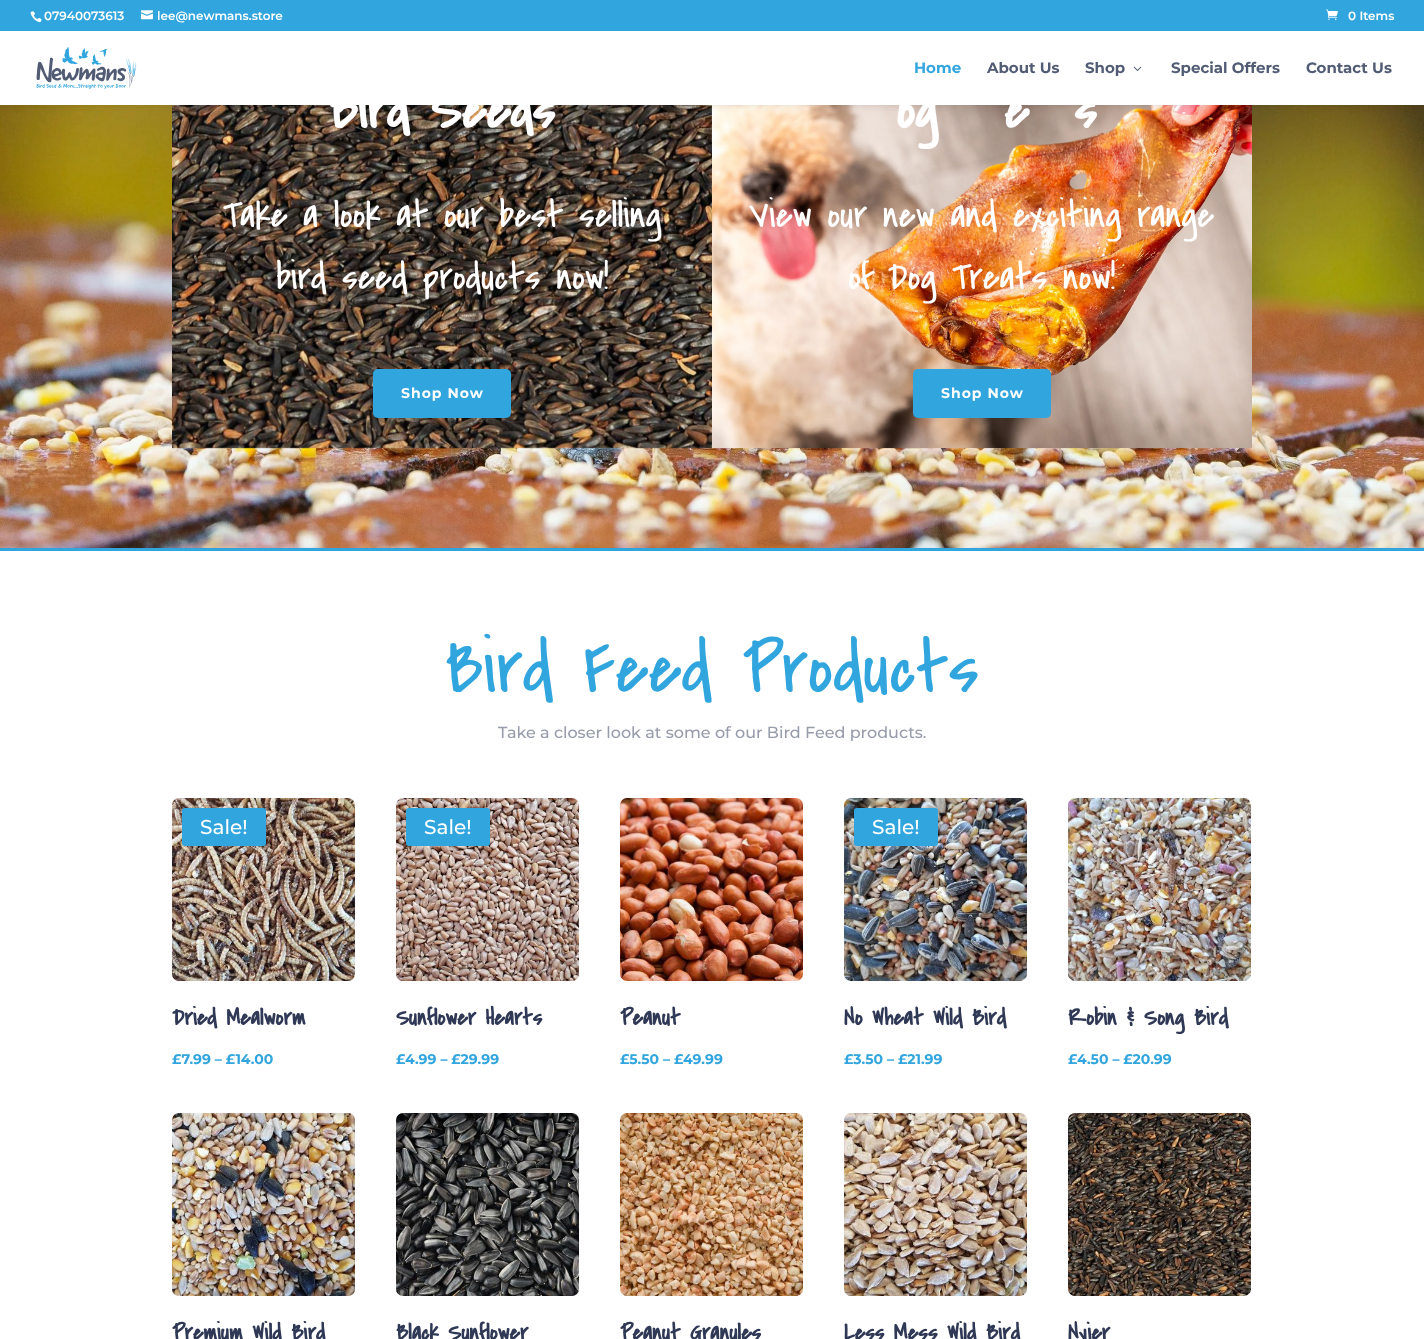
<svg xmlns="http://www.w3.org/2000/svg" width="1424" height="1339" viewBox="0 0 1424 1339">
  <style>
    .t1 { font: 600 12px Montserrat; fill: #fff; }
    .t2 { font: bold 15px Montserrat; fill: #31a5de; }
    .t3 { font: bold 15px Montserrat; fill: #515c74; }
    .t4 { font: bold 56px Covered By Your Grace; fill: #fff; }
    .t5 { font: 39px Covered By Your Grace; fill: #fff; }
    .t6 { font: bold 14px Montserrat; letter-spacing: 1px; fill: #fff; }
    .t7 { font: 76px Covered By Your Grace; fill: #31a5de; }
    .t8 { font: 500 16px Montserrat; fill: #979caa; }
    .t9 { font: 500 20px Montserrat; fill: #fff; }
    .t10 { font: bold 24px Covered By Your Grace; fill: #2f3854; }
    .t11 { font: bold 14px Montserrat; fill: #31a5de; }
  </style>
  <rect width="100%" height="100%" fill="#fff"/>
  <image x="0" y="105" width="1424" height="443" href="images/8.png"/>
  <image x="172" y="105" width="540" height="344" href="images/6.png"/>
  <image x="712" y="105" width="540" height="344" href="images/7.png"/>
  <rect x="0" y="31" width="1424" height="74" fill="#0000001a" filter="blur(3.5px)"/>
  <rect x="0" y="0" width="1424" height="31" fill="#31a5de"/>
  <image x="30" y="11" width="12" height="12" href="images/1.png"/>
  <text x="44" y="20" class="t1">07940073613</text>
  <image x="141" y="10" width="12" height="10" href="images/2.png"/>
  <text x="157" y="20" class="t1">lee@newmans.store</text>
  <image x="1326" y="9" width="12" height="11" href="images/3.png"/>
  <text x="1348" y="20" class="t1">0 Items</text>
  <rect x="0" y="31" width="1424" height="74" fill="#fff"/>
  <image x="36" y="46" width="101" height="43" href="images/4.png"/>
  <text x="914" y="73" class="t2">Home</text>
  <text x="987" y="73" class="t3">About Us</text>
  <text x="1085" y="73" class="t3">Shop</text>
  <image x="1133" y="66" width="9" height="5" href="images/5.png"/>
  <text x="1171" y="73" class="t3">Special Offers</text>
  <text x="1306" y="73" class="t3">Contact Us</text>
  <text x="329" y="128" class="t4">Bird Seeds</text>
  <text x="223" y="227" class="t5">Take a look at our best selling</text>
  <text x="276" y="289" class="t5">bird seed products now!</text>
  <rect x="373" y="369" width="138" height="49" rx="5" fill="#31a5de"/>
  <text x="401" y="398" class="t6">Shop Now</text>
  <text x="896" y="128" class="t4">og</text>
  <text x="1004" y="128" class="t4">e</text>
  <text x="1074" y="128" class="t4">s</text>
  <text x="749" y="227" class="t5">View our new and exciting range</text>
  <text x="848" y="289" class="t5">of Dog Treats now!</text>
  <rect x="913" y="369" width="138" height="49" rx="5" fill="#31a5de"/>
  <text x="941" y="398" class="t6">Shop Now</text>
  <rect x="0" y="548" width="1424" height="3" fill="#31a5de"/>
  <text x="445" y="692" class="t7">Bird Feed Products</text>
  <text x="498" y="738" class="t8">Take a closer look at some of our Bird Feed products.</text>
  <image x="172" y="798" width="183" height="183" href="images/9.png"/>
  <rect x="182" y="808" width="84" height="38" rx="3" fill="#31a5de"/>
  <text x="200" y="834" class="t9">Sale!</text>
  <text x="172" y="1025" class="t10">Dried Mealworm</text>
  <text x="172" y="1064" class="t11">£7.99 – £14.00</text>
  <image x="396" y="798" width="183" height="183" href="images/10.png"/>
  <rect x="406" y="808" width="84" height="38" rx="3" fill="#31a5de"/>
  <text x="424" y="834" class="t9">Sale!</text>
  <text x="396" y="1025" class="t10">Sunflower Hearts</text>
  <text x="396" y="1064" class="t11">£</text>
  <text x="405" y="1064" class="t11">4.99 – £29.99</text>
  <image x="620" y="798" width="183" height="183" href="images/11.png"/>
  <text x="620" y="1025" class="t10">Peanut</text>
  <text x="620" y="1064" class="t11">£5.50 – £</text>
  <text x="683" y="1064" class="t11">49.99</text>
  <image x="844" y="798" width="183" height="183" href="images/12.png"/>
  <rect x="854" y="808" width="84" height="38" rx="3" fill="#31a5de"/>
  <text x="872" y="834" class="t9">Sale!</text>
  <text x="844" y="1025" class="t10">No Wheat Wild Bird</text>
  <text x="844" y="1064" class="t11">£3.50 – £21.99</text>
  <image x="1068" y="798" width="183" height="183" href="images/13.png"/>
  <text x="1068" y="1025" class="t10">Robin &amp; Song Bird</text>
  <text x="1068" y="1064" class="t11">£</text>
  <text x="1077" y="1064" class="t11">4.50 – £20.99</text>
  <image x="172" y="1113" width="183" height="183" href="images/14.png"/>
  <text x="172" y="1340" class="t10">Premium Wild Bird</text>
  <image x="396" y="1113" width="183" height="183" href="images/15.png"/>
  <text x="396" y="1340" class="t10">Black Sunflower</text>
  <image x="620" y="1113" width="183" height="183" href="images/16.png"/>
  <text x="620" y="1340" class="t10">Peanut Granules</text>
  <image x="844" y="1113" width="183" height="183" href="images/17.png"/>
  <text x="844" y="1340" class="t10">Less Mess Wild Bird</text>
  <image x="1068" y="1113" width="183" height="183" href="images/18.png"/>
  <text x="1068" y="1340" class="t10">Nyjer</text>
</svg>
